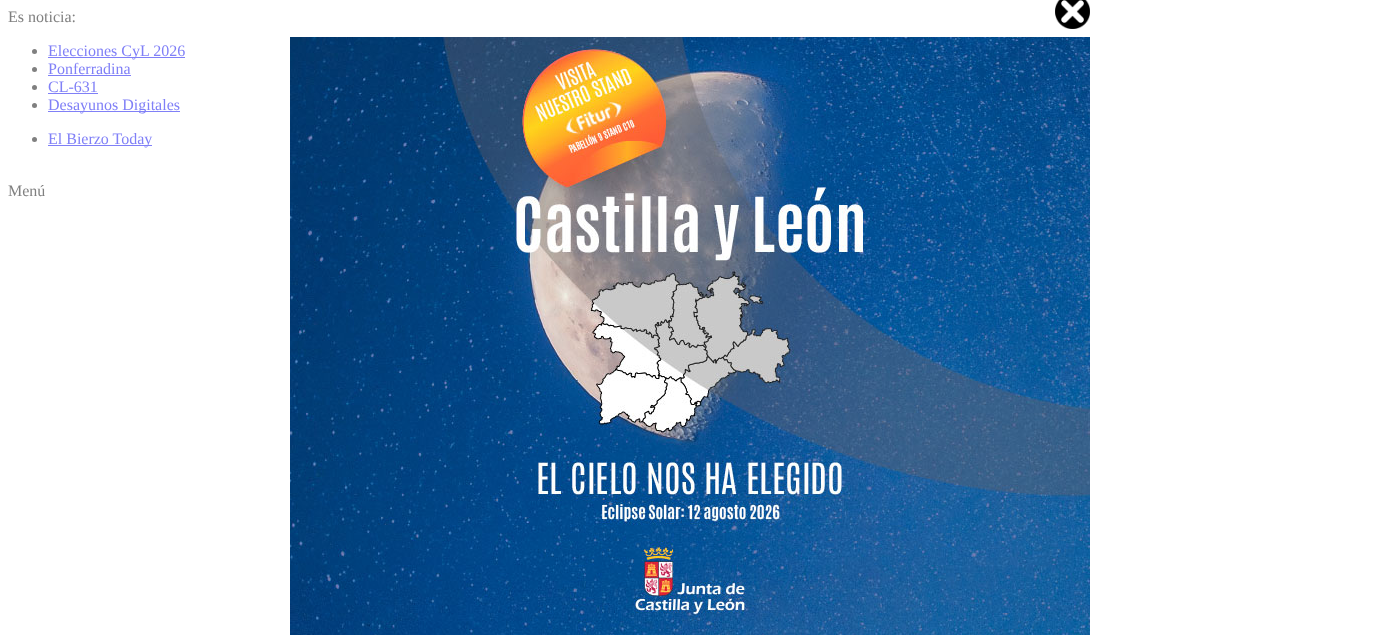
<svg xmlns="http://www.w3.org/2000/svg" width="1379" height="635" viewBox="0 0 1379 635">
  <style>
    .t1 { font: 16px Liberation Serif; fill: #808080; }
    .t2 { font: 16px Liberation Serif; fill: #8080f7; }
  </style>
  <rect width="100%" height="100%" fill="#fff"/>
  <text x="8" y="22" class="t1">Es noticia:</text>
  <circle cx="34.5" cy="51.5" r="2.5" fill="#808080"/>
  <rect x="48" y="57" width="137" height="1" fill="#8080f7"/>
  <text x="48" y="56" class="t2">Elecciones CyL 2026</text>
  <circle cx="34.5" cy="69.5" r="2.5" fill="#808080"/>
  <text x="48" y="74" class="t2">Ponferradina</text>
  <rect x="48" y="75" width="83" height="1" fill="#8080f7"/>
  <circle cx="34.5" cy="87.5" r="2.5" fill="#808080"/>
  <text x="48" y="92" class="t2">CL-631</text>
  <rect x="48" y="93" width="50" height="1" fill="#8080f7"/>
  <circle cx="34.5" cy="105.5" r="2.5" fill="#808080"/>
  <rect x="48" y="111" width="132" height="1" fill="#8080f7"/>
  <text x="48" y="110" class="t2">Desayunos Digitales</text>
  <circle cx="34.5" cy="139.5" r="2.5" fill="#808080"/>
  <rect x="48" y="145" width="104" height="1" fill="#8080f7"/>
  <text x="48" y="144" class="t2">El Bierzo Today</text>
  <image x="1055" y="0" width="35" height="29" href="images/1.png"/>
  <image x="290" y="37" width="800" height="598" href="images/2.png"/>
  <text x="8" y="196" class="t1">Menú</text>
</svg>
